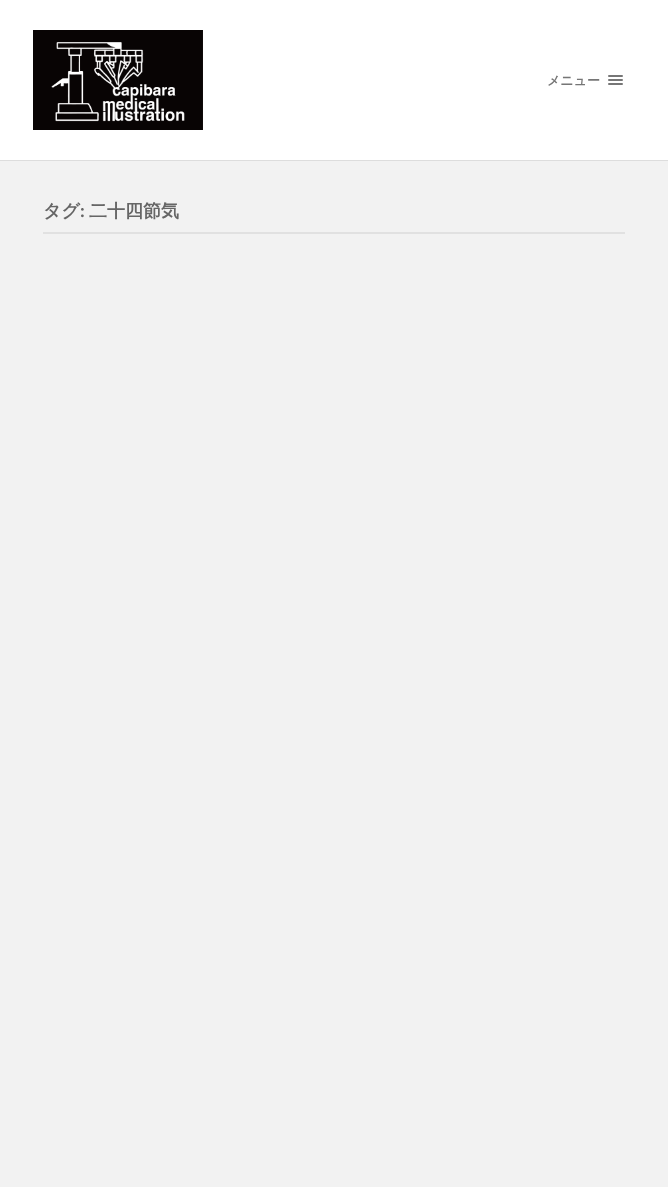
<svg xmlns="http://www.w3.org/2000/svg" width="668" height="1187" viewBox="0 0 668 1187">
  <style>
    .t1 { font: bold 13px WenQuanYi Zen Hei; fill: #767676; }
    .t2 { font: bold 18px WenQuanYi Zen Hei; fill: #666; }
    .t3 { font: bold 18px Lato; fill: #666; }
  </style>
  <rect width="100%" height="100%" fill="#f2f2f2"/>
  <rect x="0" y="0" width="668" height="160" fill="#fff"/>
  <rect x="0" y="160" width="668" height="1" fill="#ddd"/>
  <image x="33" y="30" width="170" height="100" href="images/1.png"/>
  <text x="547" y="85" class="t1">メニュー</text>
  <rect x="608" y="75" width="15" height="2" rx="1" fill="#767676"/>
  <rect x="608" y="79" width="15" height="2" rx="1" fill="#767676"/>
  <rect x="608" y="83" width="15" height="2" rx="1" fill="#767676"/>
  <rect x="43" y="232" width="582" height="2" fill="#e1e1e1"/>
  <text x="43" y="217" class="t2">タグ</text>
  <text x="80" y="217" class="t3">:</text>
  <text x="89" y="217" class="t2">二十四節気</text>
</svg>
